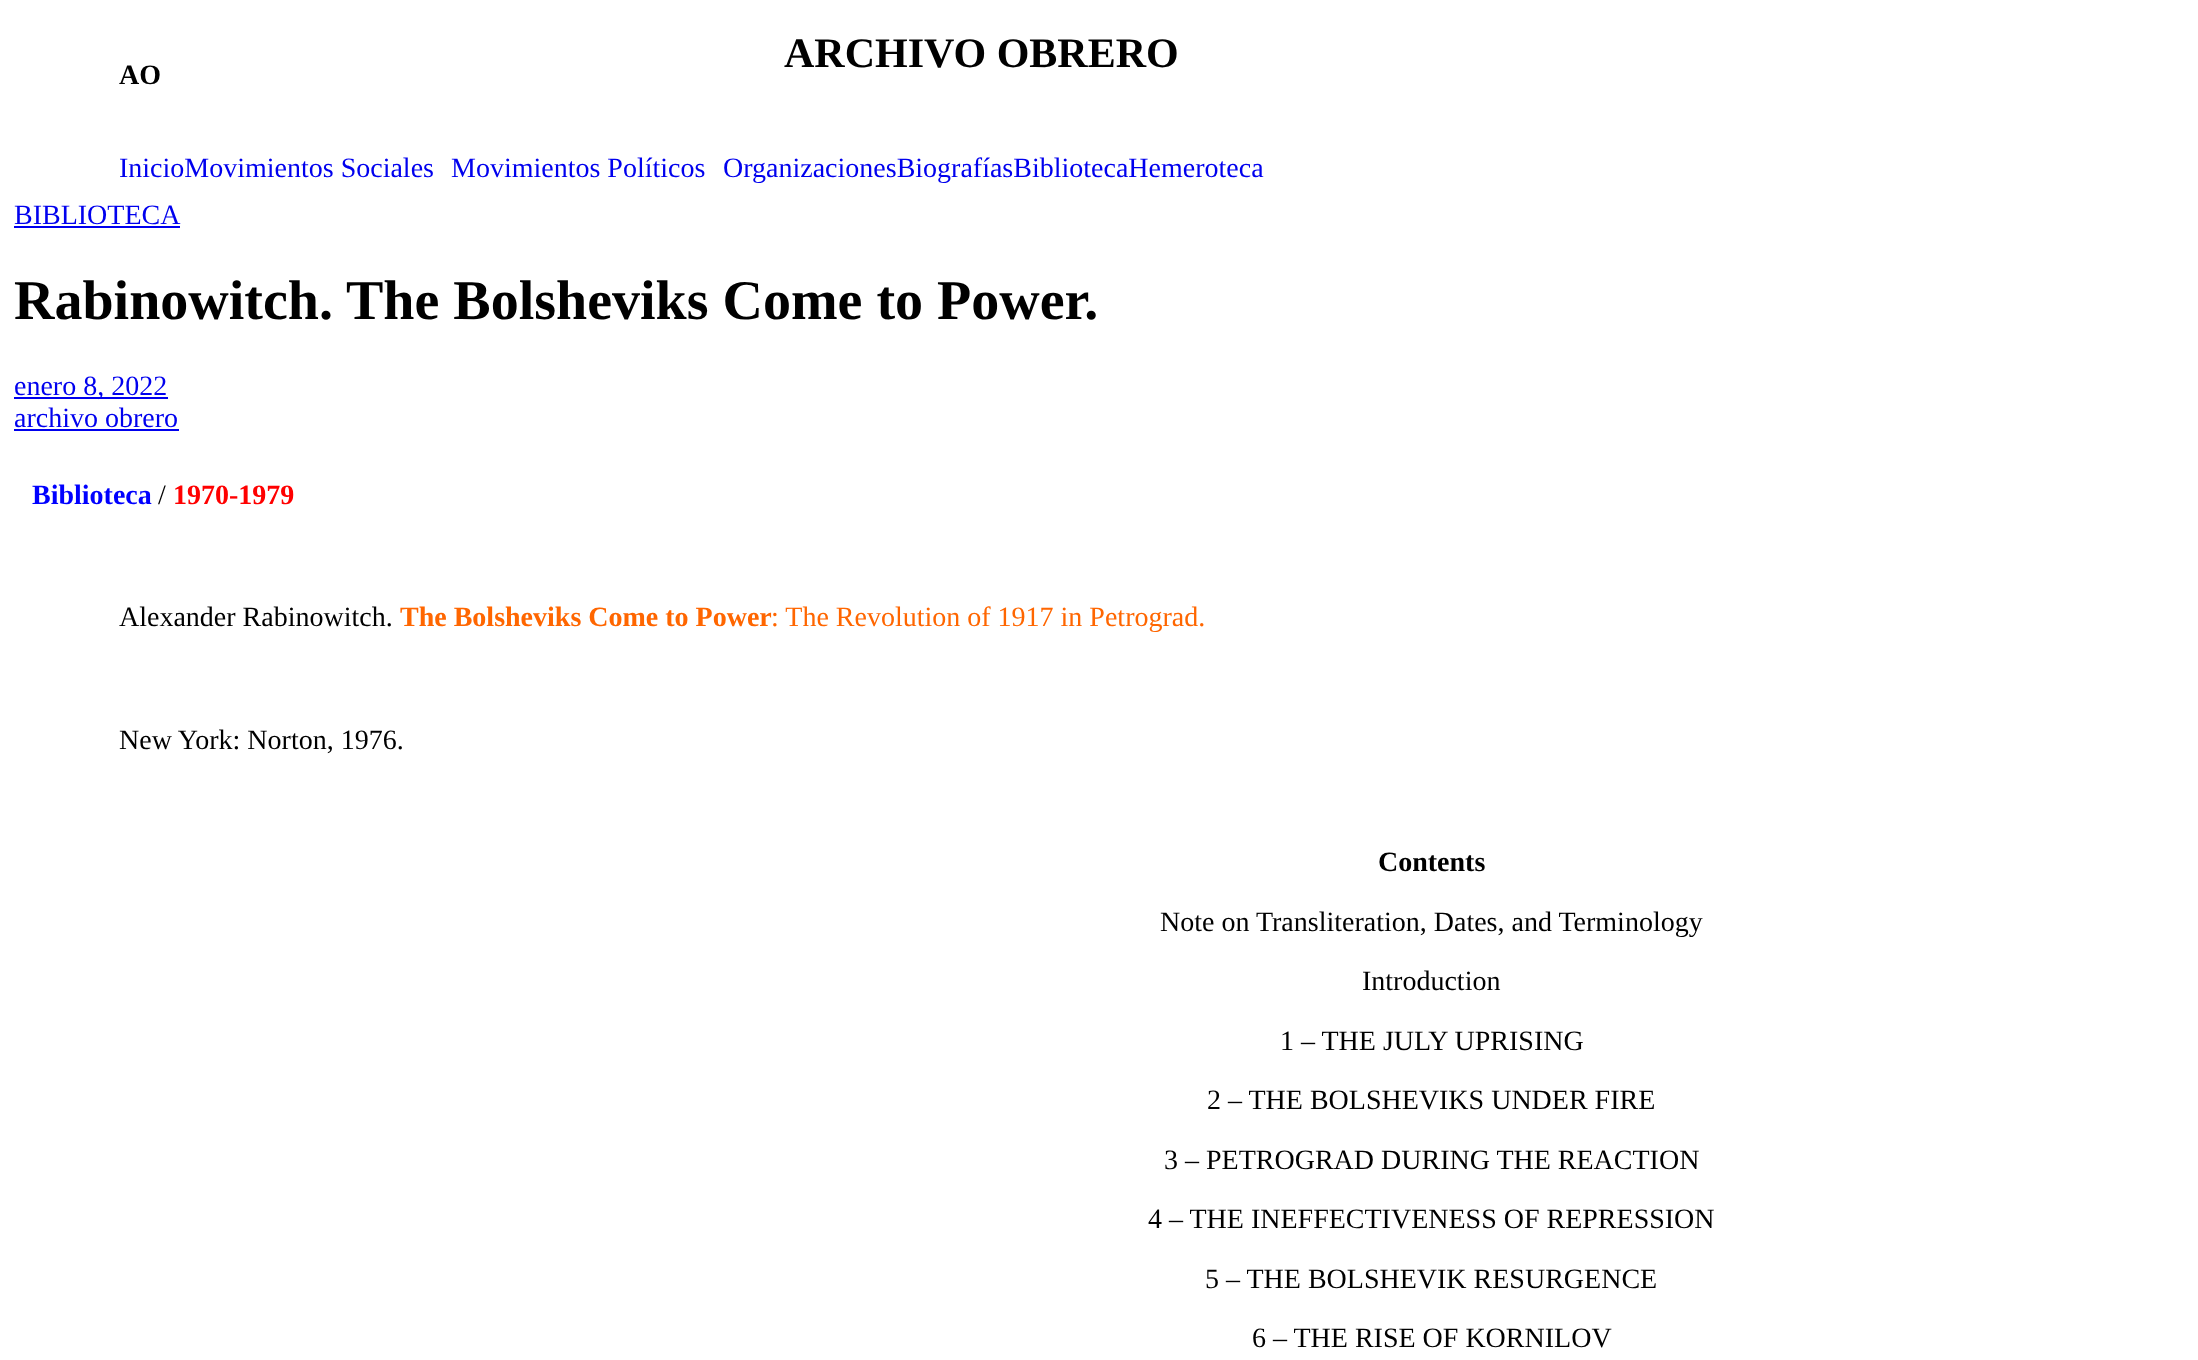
<svg xmlns="http://www.w3.org/2000/svg" width="2198" height="1360" viewBox="0 0 2198 1360">
  <style>
    .t1 { font: bold 42px Liberation Serif; fill: #000; }
    .t2 { font: bold 28px Liberation Serif; fill: #000; }
    .t3 { font: 28px Liberation Serif; fill: #00e; }
    .t4 { font: bold 56px Liberation Serif; fill: #000; }
    .t5 { font: bold 28px Liberation Serif; fill: #00f; }
    .t6 { font: 28px Liberation Serif; fill: #000; }
    .t7 { font: bold 28px Liberation Serif; fill: #f00; }
    .t8 { font: bold 28px Liberation Serif; fill: #f60; }
    .t9 { font: 28px Liberation Serif; fill: #f60; }
  </style>
  <rect width="100%" height="100%" fill="#fff"/>
  <text x="784" y="67" class="t1">ARCHIVO OBRERO</text>
  <text x="119" y="84" class="t2">AO</text>
  <text x="119" y="177" class="t3">InicioMovimientos Sociales</text>
  <text x="451" y="177" class="t3">Movimientos Políticos</text>
  <text x="723" y="177" class="t3">OrganizacionesBiografíasBibliotecaHemeroteca</text>
  <text x="14" y="224" class="t3">BIBLIOTECA</text>
  <rect x="14" y="226" width="166" height="2" fill="#00e"/>
  <text x="14" y="319" class="t4">Rabinowitch. The Bolsheviks Come to Power.</text>
  <rect x="14" y="397" width="154" height="2" fill="#00e"/>
  <text x="14" y="395" class="t3">enero 8, 2022</text>
  <text x="14" y="427" class="t3">archivo obrero</text>
  <rect x="14" y="429" width="165" height="2" fill="#00e"/>
  <text x="32" y="504" class="t5">Biblioteca</text>
  <text x="158" y="504" class="t6">/</text>
  <text x="173" y="504" class="t7">1970-1979</text>
  <text x="119" y="626" class="t6">Alexander Rabinowitch.</text>
  <text x="400" y="626" class="t8">The Bolsheviks Come to Power</text>
  <text x="771" y="626" class="t9">: The Revolution of 1917 in Petrograd.</text>
  <text x="119" y="749" class="t6">New York: Norton, 1976.</text>
  <text x="1378" y="871" class="t2">Contents</text>
  <text x="1160" y="931" class="t6">Note on Transliteration, Dates, and Terminology</text>
  <text x="1362" y="990" class="t6">Introduction</text>
  <text x="1280" y="1050" class="t6">1 – THE JULY UPRISING</text>
  <text x="1207" y="1109" class="t6">2 – THE BOLSHEVIKS UNDER FIRE</text>
  <text x="1164" y="1169" class="t6">3 – PETROGRAD DURING THE REACTION</text>
  <text x="1148" y="1228" class="t6">4 – THE INEFFECTIVENESS OF REPRESSION</text>
  <text x="1205" y="1288" class="t6">5 – THE BOLSHEVIK RESURGENCE</text>
  <text x="1252" y="1347" class="t6">6 – THE RISE OF KORNILOV</text>
</svg>
